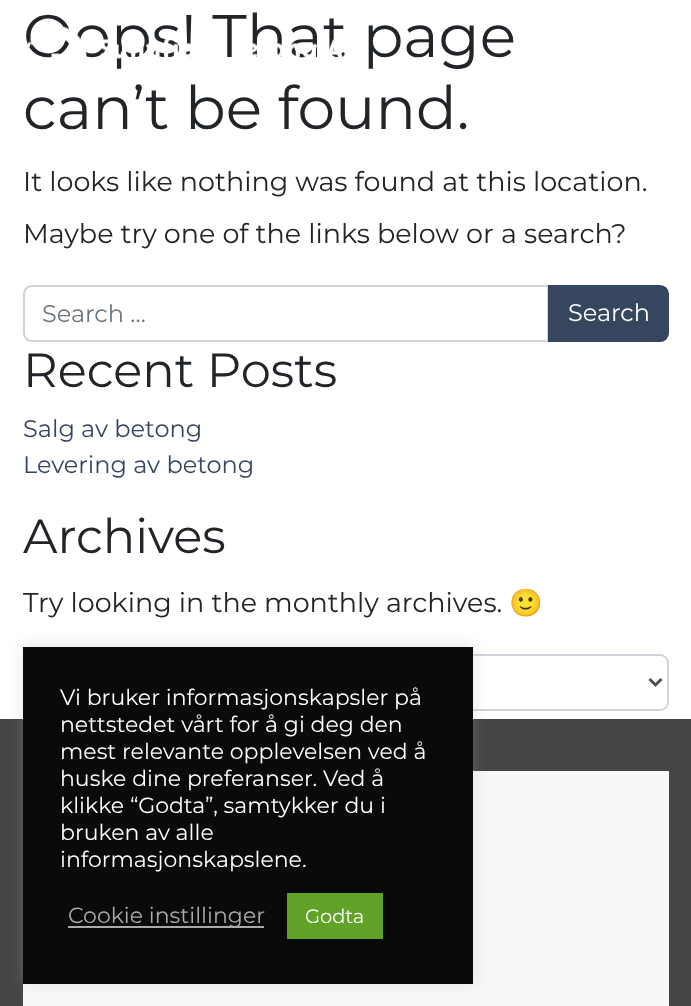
<svg xmlns="http://www.w3.org/2000/svg" width="691" height="1006" viewBox="0 0 691 1006">
  <style>
    .t1 { font: 60px Montserrat; fill: #212529; }
    .t2 { font: 27px Montserrat; fill: #212529; }
    .t3 { font: 24px Montserrat; fill: #6c757d; }
    .t4 { font: 24px Montserrat; fill: #fff; }
    .t5 { font: 48px Montserrat; fill: #212529; }
    .t6 { font: 24px Montserrat; fill: #36465e; }
    .t7 { font: 27px Noto Color Emoji; fill: #212529; }
    .t8 { font: 22px Montserrat; fill: #fff; }
    .t9 { font: 22px Montserrat; fill: #aaa; }
    .t10 { font: 19.5px Montserrat; fill: #fff; }
  </style>
  <rect width="100%" height="100%" fill="#fff"/>
  <text x="23" y="57" class="t1">Oops! That page</text>
  <text x="23" y="129" class="t1">can’t be found.</text>
  <text x="23" y="191" class="t2">It looks like nothing was found at this location.</text>
  <text x="23" y="243" class="t2">Maybe try one of the links below or a search?</text>
  <path d="M32 286H548V341H32C27.5 341 24 337.5 24 333V294C24 289.5 27.5 286 32 286Z" fill="none" stroke="#ced4da" stroke-width="2"/>
  <text x="42" y="322" class="t3">Search …</text>
  <path d="M549 286H660C664.5 286 668 289.5 668 294V333C668 337.5 664.5 341 660 341H549Z" fill="#36465e" stroke="#36465e" stroke-width="2"/>
  <text x="568" y="321" class="t4">Search</text>
  <text x="23" y="387" class="t5">Recent Posts</text>
  <text x="23" y="437" class="t6">Salg av betong</text>
  <text x="23" y="473" class="t6">Levering av betong</text>
  <text x="23" y="553" class="t5">Archives</text>
  <text x="23" y="612" class="t2">Try looking in the monthly archives.</text>
  <text x="509" y="612" class="t7">🙂</text>
  <rect x="24" y="655" width="644" height="55" rx="8" fill="none" stroke="#ced4da" stroke-width="2"/>
  <path d="M649.5 679L655.5 685L661.5 679" fill="none" stroke="#495057" stroke-width="3"/>
  <image x="27" y="25" width="318" height="34" href="images/1.png"/>
  <rect x="0" y="719" width="691" height="287" fill="#454545"/>
  <rect x="23" y="771" width="646" height="235" fill="#f7f7f7"/>
  <rect x="23" y="645" width="450" height="338" fill="#acabab4d" filter="blur(7.5px)"/>
  <rect x="23" y="647" width="450" height="337" fill="#0a0a0a"/>
  <text x="60" y="705" class="t8">Vi bruker informasjonskapsler på</text>
  <text x="60" y="732" class="t8">nettstedet vårt for å gi deg den</text>
  <text x="60" y="759" class="t8">mest relevante opplevelsen ved å</text>
  <text x="60" y="786" class="t8">huske dine preferanser. Ved å</text>
  <text x="60" y="813" class="t8">klikke “Godta”, samtykker du i</text>
  <text x="60" y="840" class="t8">bruken av alle</text>
  <text x="60" y="867" class="t8">informasjonskapslene.</text>
  <rect x="68" y="926" width="196" height="2" fill="#aaa"/>
  <text x="68" y="923" class="t9">Cookie instillinger</text>
  <rect x="287" y="893" width="96" height="46" fill="#61a229"/>
  <text x="305" y="923" class="t10">Godta</text>
</svg>
